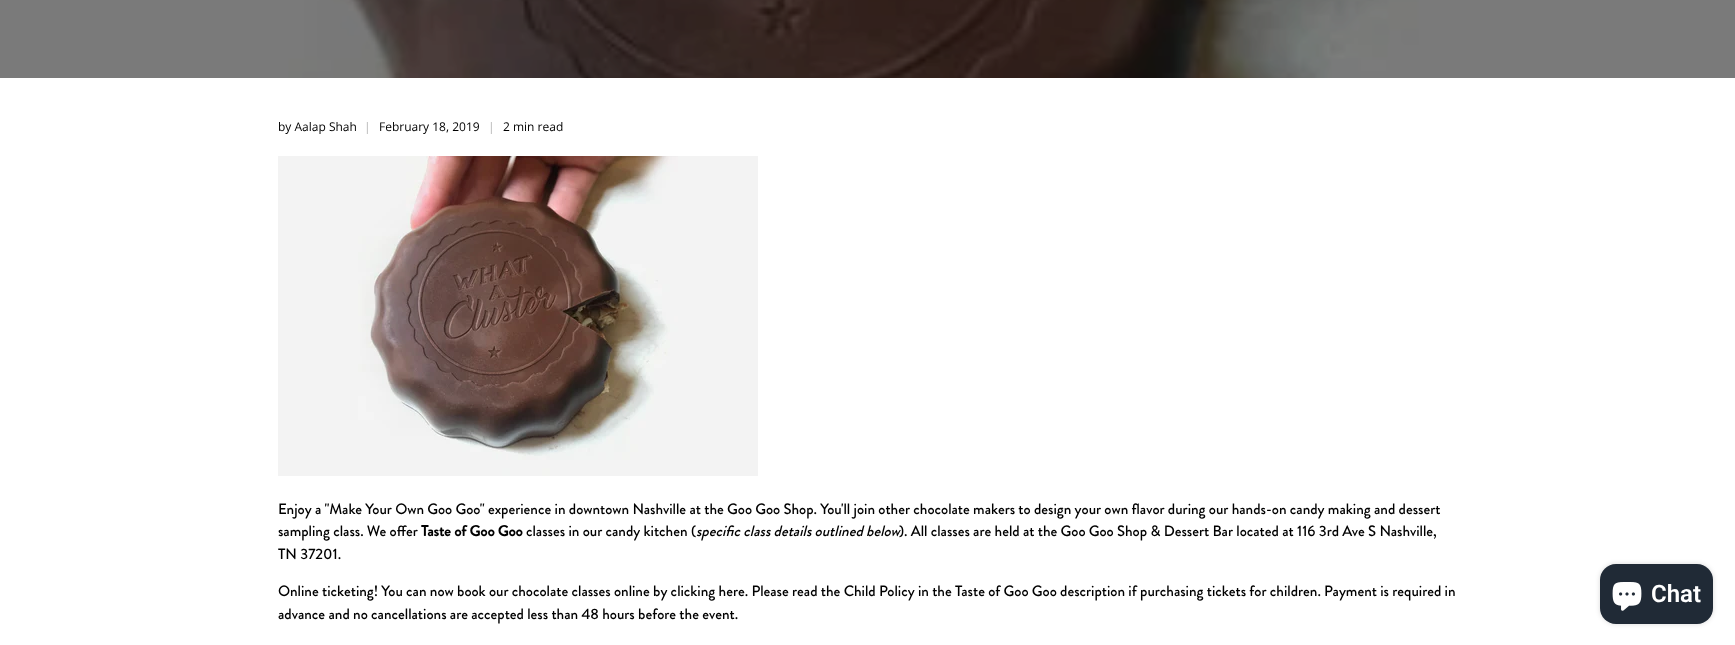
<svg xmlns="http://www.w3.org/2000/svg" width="1735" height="645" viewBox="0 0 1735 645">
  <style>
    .t1 { font: 12px Open Sans; fill: #000; }
    .t2 { font: 12px Open Sans; fill: #b3b3b3; }
    .t3 { font: 500 15px Brandon Grotesque; fill: #000; }
    .t4 { font: bold 15px Brandon Grotesque; fill: #000; }
    .t5 { font: italic 500 15px Brandon Grotesque; fill: #000; }
    .t6 { font: 600 24px Roboto; fill: #fff; }
  </style>
  <rect width="100%" height="100%" fill="#fff"/>
  <image x="0" y="0" width="1735" height="78" href="images/1.png"/>
  <text x="278" y="131" class="t1">by Aalap Shah</text>
  <text x="364" y="131" class="t2">|</text>
  <text x="379" y="131" class="t1">February 18, 2019</text>
  <text x="488" y="131" class="t2">|</text>
  <text x="503" y="131" class="t1">2 min read</text>
  <image x="278" y="156" width="480" height="320" href="images/2.png"/>
  <text x="278" y="514" class="t3">Enjoy a "Make Your Own Goo Goo" experience in downtown Nashville at the Goo Goo Shop. You'll join other chocolate makers to design your own flavor during our hands-on candy making and dessert</text>
  <text x="278" y="536" class="t3">sampling class. We offer</text>
  <text x="421" y="536" class="t4">Taste of Goo Goo</text>
  <text x="526" y="536" class="t3">classes in our candy kitchen (</text>
  <text x="696" y="536" class="t5">specific class details outlined below</text>
  <text x="899" y="536" class="t3">). All classes are held at the Goo Goo Shop &amp; Dessert Bar located at 116 3rd Ave S Nashville,</text>
  <text x="278" y="559" class="t3">TN 37201.</text>
  <text x="278" y="596" class="t3">Online ticketing! You can now book our chocolate classes online by clicking here. Please read the Child Policy in the Taste of Goo Goo description if purchasing tickets for children. Payment is required in</text>
  <text x="278" y="619" class="t3">advance and no cancellations are accepted less than 48 hours before the event.</text>
  <rect x="1600" y="564" width="113" height="60" rx="16" fill="#00000026" filter="blur(2.5px)"/>
  <rect x="1600" y="564" width="113" height="60" rx="16" fill="#202a36"/>
  <image x="1612" y="582" width="30" height="29" href="images/3.png"/>
  <text x="1651" y="602" class="t6">Chat</text>
</svg>
